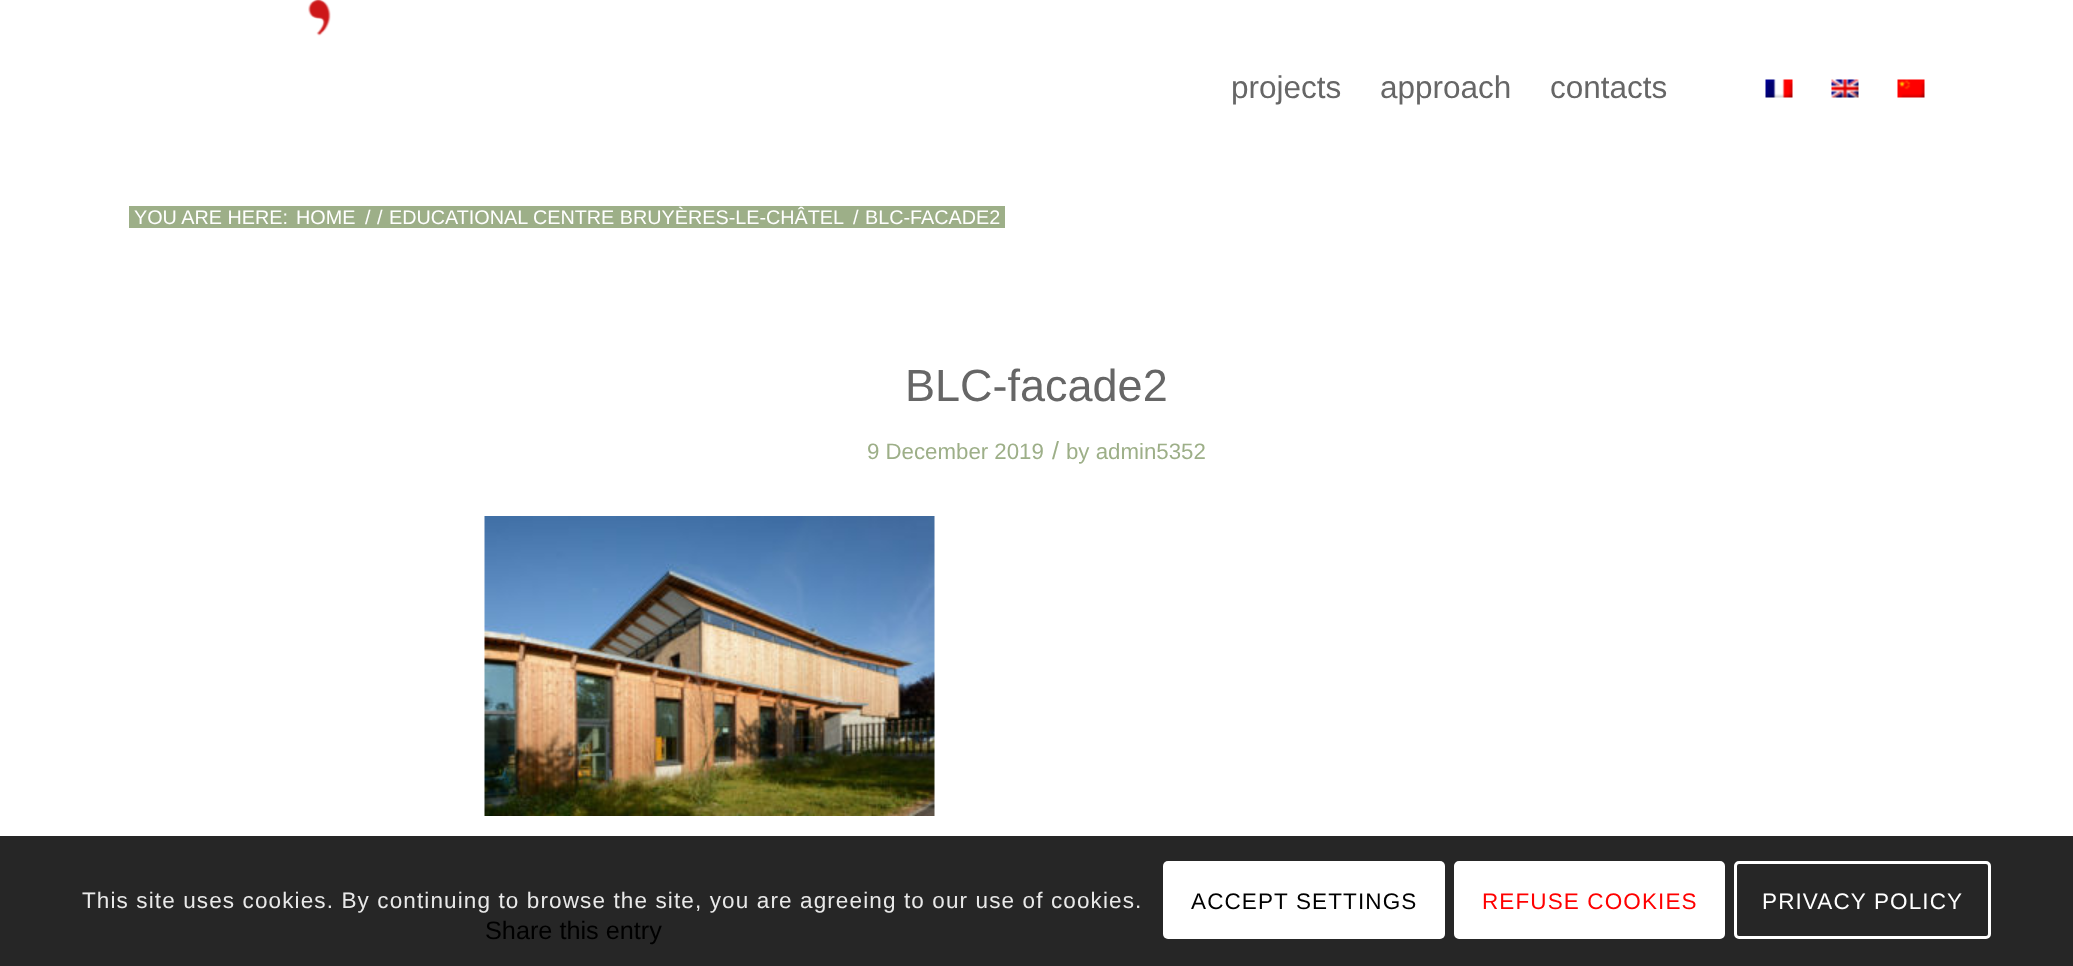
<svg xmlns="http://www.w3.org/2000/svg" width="2073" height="966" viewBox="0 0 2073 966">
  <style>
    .t1 { font: 31.5px Liberation Sans; fill: #666; }
    .t2 { font: 19.8px Liberation Sans; fill: #fff; }
    .t3 { font: 45px Liberation Sans; fill: #666; }
    .t4 { font: 22.25px Liberation Sans; fill: #9daf88; }
    .t5 { font: 25px Liberation Sans; fill: #9daf88; }
    .t6 { font: 25.25px Liberation Sans; fill: #000; }
    .t7 { font: 22.5px Liberation Sans; letter-spacing: 1.12px; fill: #e9e9e9; }
    .t8 { font: 22.5px Liberation Sans; letter-spacing: 1.12px; fill: #000; }
    .t9 { font: 22.5px Liberation Sans; letter-spacing: 1.12px; fill: #f00; }
    .t10 { font: 22.5px Liberation Sans; letter-spacing: 1.12px; fill: #fff; }
  </style>
  <rect width="100%" height="100%" fill="#fff"/>
  <rect x="0" y="836" width="2073" height="130" fill="#262626"/>
  <image x="308" y="0" width="23" height="36" href="images/1.png"/>
  <text x="1231" y="98" class="t1">projects</text>
  <text x="1380" y="98" class="t1">approach</text>
  <text x="1550" y="98" class="t1">contacts</text>
  <image x="1765" y="79" width="28" height="19" href="images/2.png"/>
  <image x="1831" y="79" width="28" height="19" href="images/3.png"/>
  <image x="1897" y="79" width="28" height="19" href="images/4.png"/>
  <rect x="129" y="206" width="243" height="22" fill="#9daf88"/>
  <text x="134" y="224" class="t2">YOU ARE HERE:</text>
  <text x="296" y="224" class="t2">HOME</text>
  <text x="365" y="224" class="t2">/</text>
  <rect x="372" y="206" width="477" height="22" fill="#9daf88"/>
  <text x="377" y="224" class="t2">/</text>
  <text x="389" y="224" class="t2">EDUCATIONAL CENTRE BRUYÈRES-LE-CHÂTEL</text>
  <rect x="849" y="206" width="156" height="22" fill="#9daf88"/>
  <text x="853" y="224" class="t2">/</text>
  <text x="865" y="224" class="t2">BLC-FACADE2</text>
  <text x="905" y="401" class="t3">BLC-facade2</text>
  <text x="867" y="459" class="t4">9 December 2019</text>
  <text x="1052" y="459" class="t5">/</text>
  <text x="1066" y="459" class="t4">by admin5352</text>
  <image x="484" y="516" width="451" height="300" href="images/5.png"/>
  <text x="485" y="939" class="t6">Share this entry</text>
  <text x="82" y="908" class="t7">This site uses cookies. By continuing to browse the site, you are agreeing to our use of cookies.</text>
  <rect x="1163" y="861" width="282" height="78" rx="5" fill="#fff"/>
  <text x="1191" y="909" class="t8">ACCEPT SETTINGS</text>
  <rect x="1455.5" y="862.5" width="268" height="75" rx="3.5" fill="#fff" stroke="#fff" stroke-width="3"/>
  <text x="1482" y="909" class="t9">REFUSE COOKIES</text>
  <rect x="1735.5" y="862.5" width="254" height="75" rx="3.5" fill="none" stroke="#fff" stroke-width="3"/>
  <text x="1762" y="909" class="t10">PRIVACY POLICY</text>
</svg>
